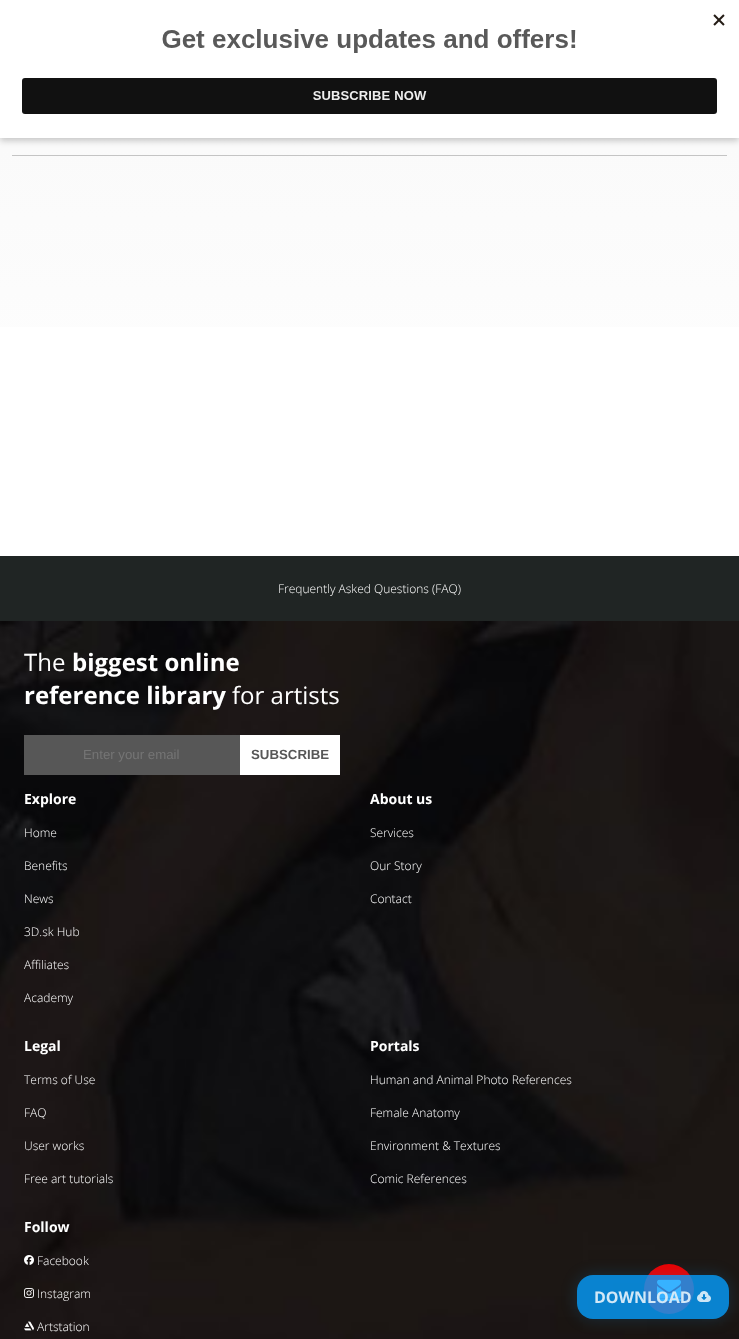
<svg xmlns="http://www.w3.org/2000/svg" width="739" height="1339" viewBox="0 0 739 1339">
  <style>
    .t1 { font: 300 12px Open Sans; fill: #fff; }
    .t2 { font: 24px Open Sans; fill: #fff; }
    .t3 { font: bold 24px Open Sans; fill: #fff; }
    .t4 { font: 13.25px Liberation Sans; fill: #757575; }
    .t5 { font: bold 13.25px Liberation Sans; fill: #575757; }
    .t6 { font: bold 14px Open Sans; fill: #fff; }
    .t7 { font: bold 16px Open Sans; fill: #d2e8f7; }
  </style>
  <defs>
    <linearGradient id="g1" gradientUnits="userSpaceOnUse" x1="369" y1="-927" x2="370" y2="506"><stop offset="0" stop-color="#ebebeb"/><stop offset="1" stop-color="#fff"/></linearGradient>
    <clipPath id="clip1"><path d="M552 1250H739V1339H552ZM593 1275H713C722 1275 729 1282 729 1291V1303C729 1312 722 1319 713 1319H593C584 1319 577 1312 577 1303V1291C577 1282 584 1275 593 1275Z" clip-rule="evenodd"/></clipPath>
  </defs>
  <rect width="100%" height="100%" fill="#fff"/>
  <rect x="0" y="138" width="739" height="189" fill="url(#g1)"/>
  <rect x="0" y="3" width="739" height="138" fill="#00000033" filter="blur(3px)"/>
  <rect x="0" y="0" width="739" height="138" fill="#fff"/>
  <image x="22" y="14" width="703" height="100" href="images/1.png"/>
  <rect x="0" y="556" width="739" height="65" fill="#202524"/>
  <text x="278" y="593" class="t1">Frequently Asked Questions (FAQ)</text>
  <image x="0" y="621" width="739" height="718" href="images/2.png"/>
  <text x="24" y="671" class="t2">The</text>
  <text x="72" y="671" class="t3">biggest online</text>
  <text x="24" y="704" class="t3">reference library</text>
  <text x="232" y="704" class="t2">for artists</text>
  <rect x="24" y="735" width="216" height="40" fill="#575757"/>
  <text x="83" y="759" class="t4">Enter your email</text>
  <rect x="240" y="735" width="100" height="40" fill="#fff"/>
  <text x="251" y="759" class="t5">SUBSCRIBE</text>
  <text x="24" y="804" class="t6">Explore</text>
  <text x="24" y="837" class="t1">Home</text>
  <text x="24" y="870" class="t1">Benefits</text>
  <text x="24" y="903" class="t1">News</text>
  <text x="24" y="936" class="t1">3D.sk Hub</text>
  <text x="24" y="969" class="t1">Affiliates</text>
  <text x="24" y="1002" class="t1">Academy</text>
  <text x="370" y="804" class="t6">About us</text>
  <text x="370" y="837" class="t1">Services</text>
  <text x="370" y="870" class="t1">Our Story</text>
  <text x="370" y="903" class="t1">Contact</text>
  <text x="24" y="1051" class="t6">Legal</text>
  <text x="24" y="1084" class="t1">Terms of Use</text>
  <text x="24" y="1117" class="t1">FAQ</text>
  <text x="24" y="1150" class="t1">User works</text>
  <text x="24" y="1183" class="t1">Free art tutorials</text>
  <text x="370" y="1051" class="t6">Portals</text>
  <text x="370" y="1084" class="t1">Human and Animal Photo References</text>
  <text x="370" y="1117" class="t1">Female Anatomy</text>
  <text x="370" y="1150" class="t1">Environment &amp; Textures</text>
  <text x="370" y="1183" class="t1">Comic References</text>
  <text x="24" y="1232" class="t6">Follow</text>
  <image x="24" y="1255" width="10" height="10" href="images/3.png"/>
  <text x="37" y="1265" class="t1">Facebook</text>
  <image x="24" y="1288" width="10" height="10" href="images/4.png"/>
  <text x="37" y="1298" class="t1">Instagram</text>
  <image x="24" y="1321" width="10" height="10" href="images/5.png"/>
  <text x="37" y="1331" class="t1">Artstation</text>
  <circle cx="669" cy="1289" r="25" fill="#ea0100"/>
  <image x="657" y="1279" width="24" height="20" href="images/6.png"/>
  <rect x="657" y="1299" width="24" height="2" fill="#fff"/>
  <rect x="12" y="155" width="715" height="1" fill="#c4c4c4"/>
  <g clip-path="url(#clip1)">
    <rect x="577" y="1275" width="152" height="44" rx="16" fill="#0896ee30" filter="blur(8px)"/>
  </g>
  <rect x="577" y="1275" width="152" height="44" rx="16" fill="#059fffcc"/>
  <text x="594" y="1303" class="t7">DOWNLOAD</text>
  <image x="697" y="1291" width="14" height="11" href="images/7.png"/>
</svg>
